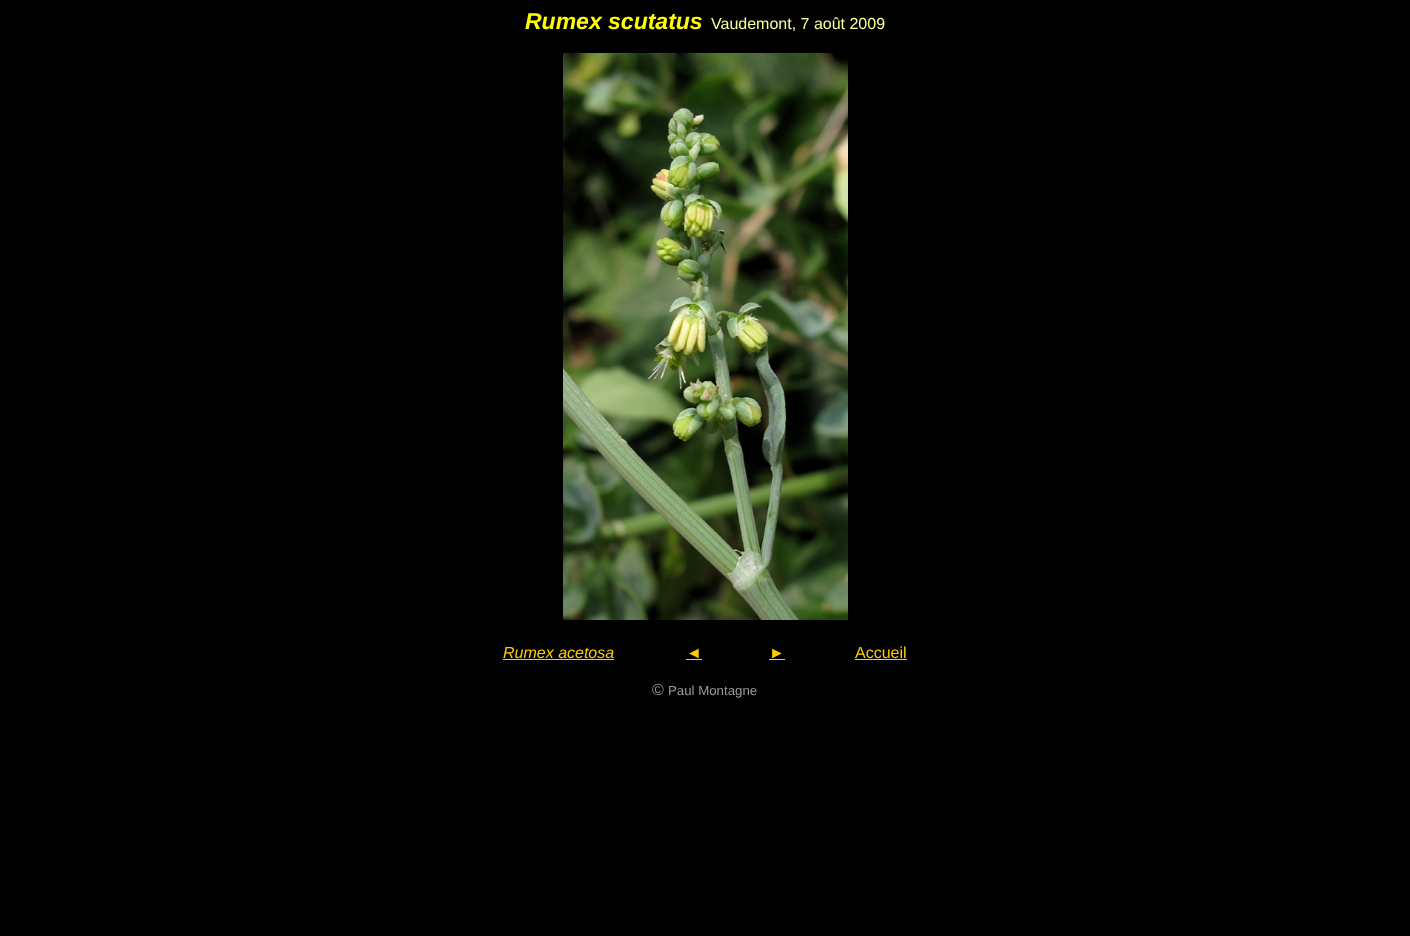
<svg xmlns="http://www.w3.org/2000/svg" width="1410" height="936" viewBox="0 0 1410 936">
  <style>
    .t1 { font: italic bold 23px Liberation Sans; fill: #ff0; }
    .t2 { font: 16px Liberation Sans; fill: #ff9; }
    .t3 { font: italic 16px Liberation Sans; fill: #fc0; }
    .t4 { font: 16px Liberation Sans; fill: #fc0; }
    .t5 { font: 16px Liberation Sans; fill: #999; }
    .t6 { font: 13.25px Liberation Sans; fill: #999; }
  </style>
  <rect width="100%" height="100%" fill="#000"/>
  <text x="525" y="29" class="t1">Rumex scutatus</text>
  <text x="711" y="29" class="t2">Vaudemont, 7 août 2009</text>
  <image x="563" y="53" width="285" height="567" href="images/1.png"/>
  <text x="503" y="658" class="t3">Rumex acetosa</text>
  <rect x="503" y="659" width="111" height="1" fill="#fc0"/>
  <text x="686" y="658" class="t4">◄</text>
  <rect x="686" y="659" width="16" height="1" fill="#fc0"/>
  <text x="769" y="658" class="t4">►</text>
  <rect x="769" y="659" width="16" height="1" fill="#fc0"/>
  <text x="855" y="658" class="t4">Accueil</text>
  <rect x="855" y="659" width="52" height="1" fill="#fc0"/>
  <text x="652" y="695" class="t5">©</text>
  <text x="668" y="695" class="t6">Paul Montagne</text>
</svg>
